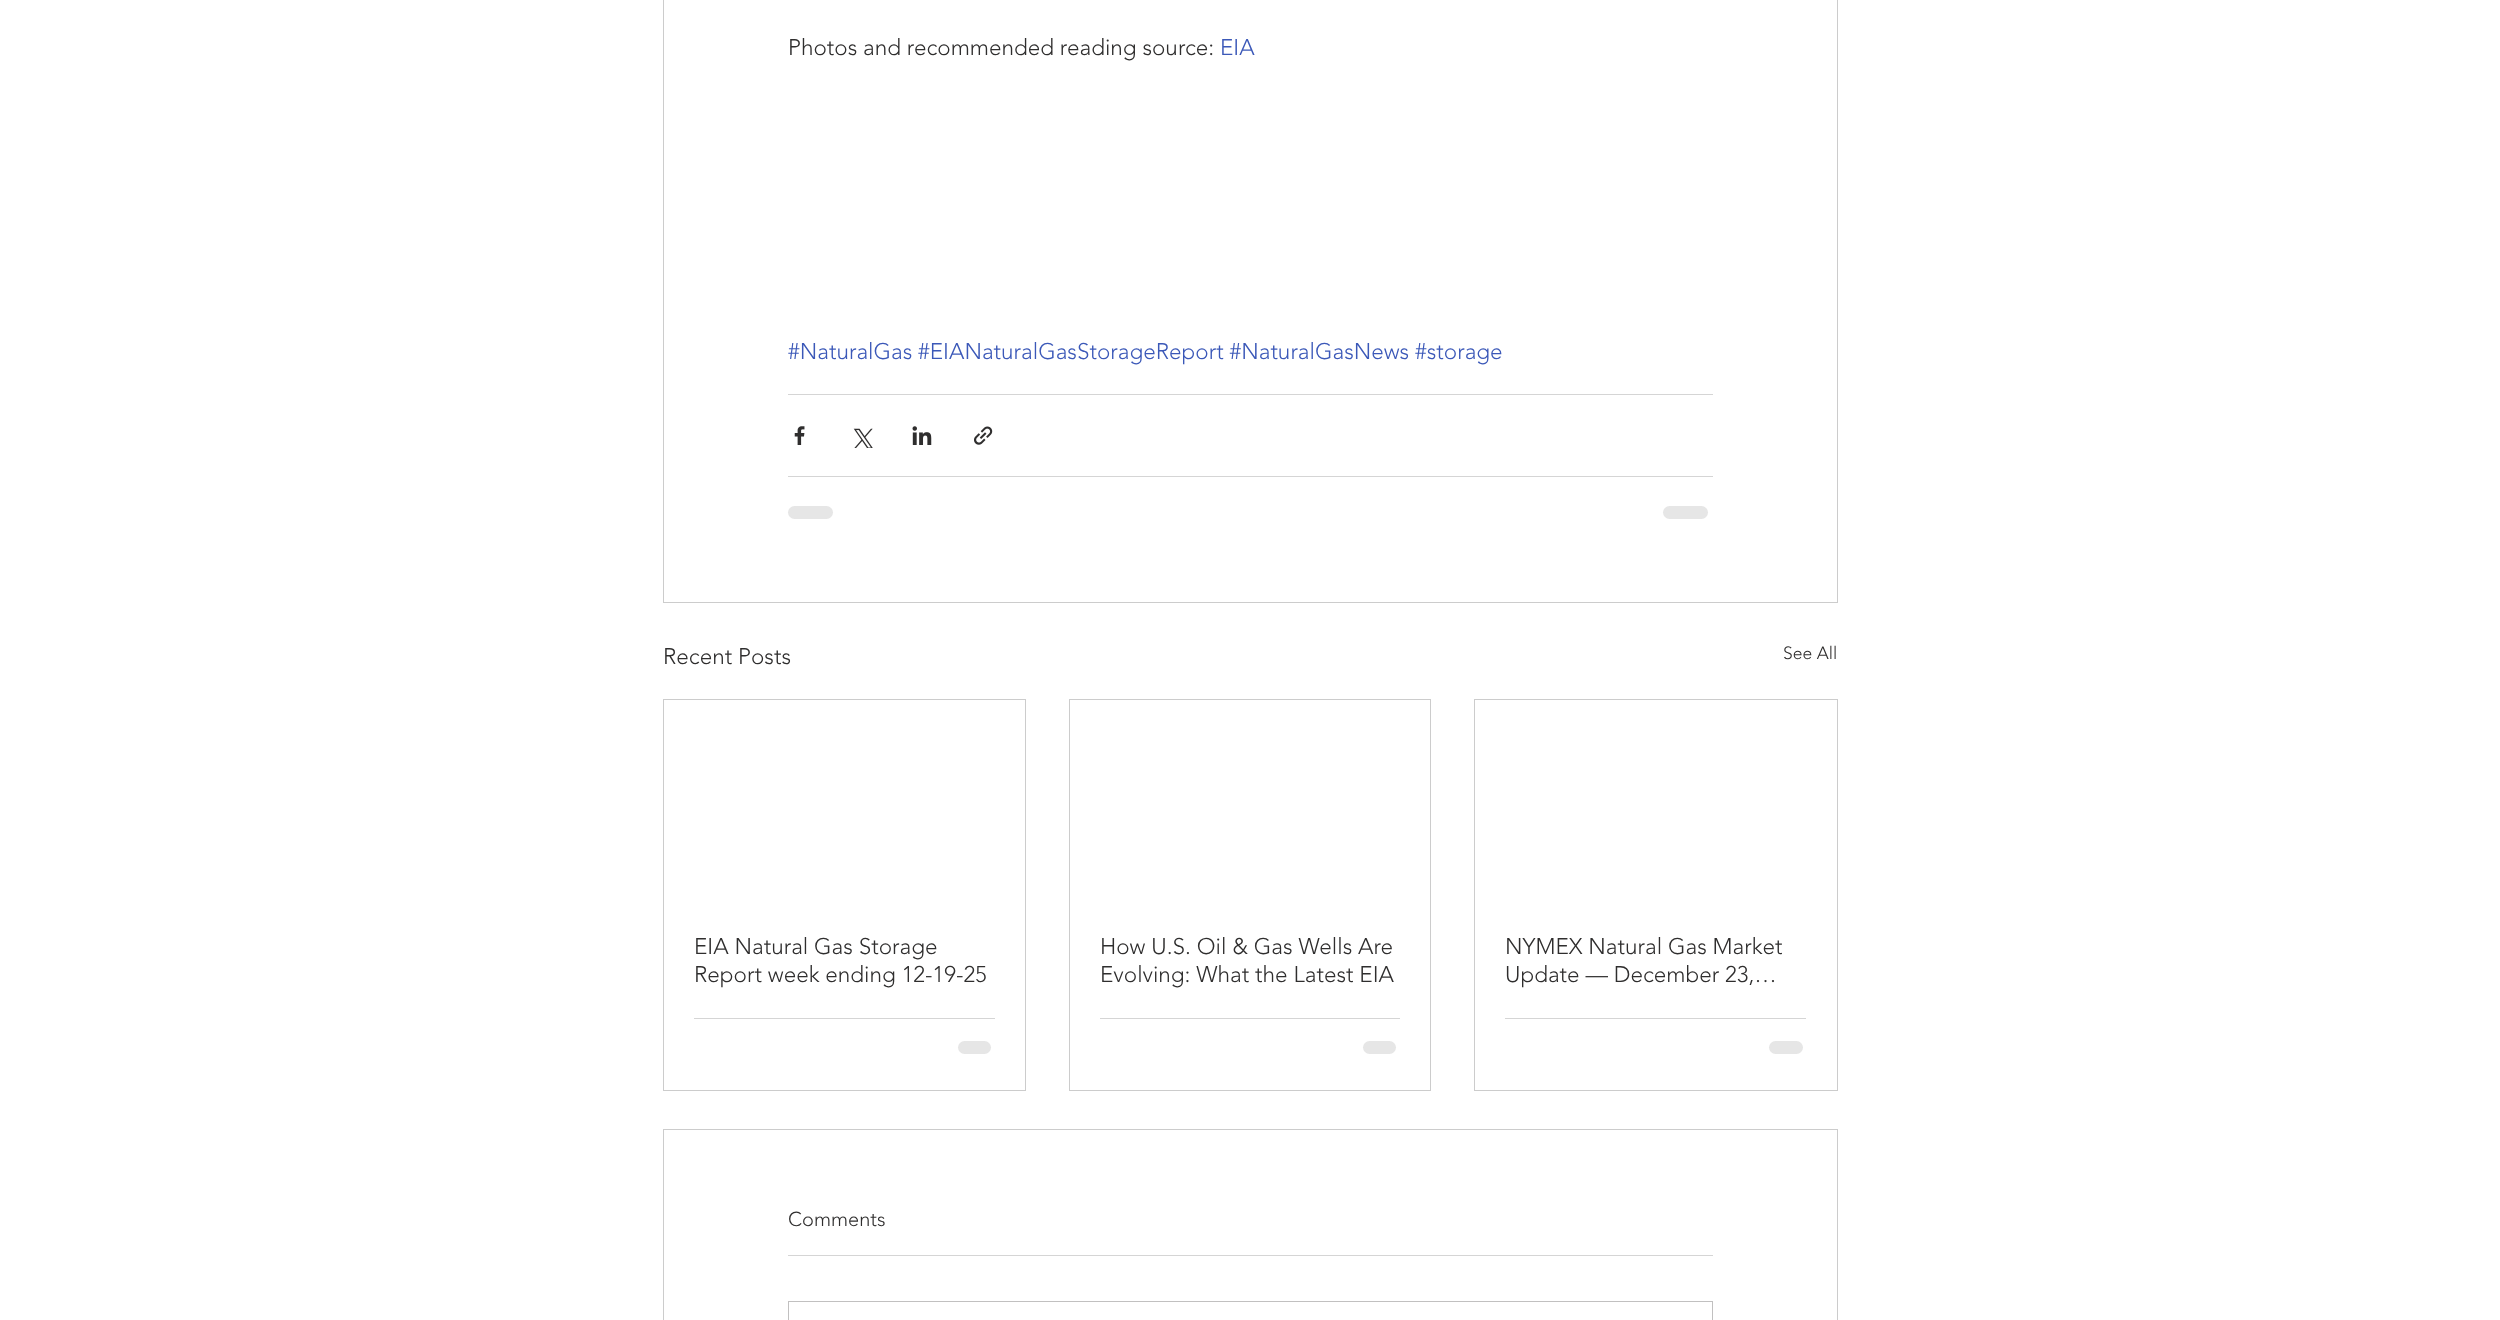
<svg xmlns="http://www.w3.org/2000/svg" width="2500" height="1320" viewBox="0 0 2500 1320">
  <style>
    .t1 { font: 300 22.5px 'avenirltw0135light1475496'; fill: #2f2e2e; }
    .t2 { font: 300 22.5px 'avenirltw0135light1475496'; fill: #3b58b8; }
    .t3 { font: 300 17.5px 'avenirltw0135light1475496'; fill: #2f2e2e; }
    .t4 { font: 300 20px 'avenirltw0135light1475496'; fill: #2f2e2e; }
  </style>
  <rect width="100%" height="100%" fill="#fff"/>
  <rect x="663.5" y="-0.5" width="1174" height="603" fill="none" stroke="#ccc"/>
  <text x="788" y="55" class="t1">Photos and recommended reading source:</text>
  <text x="1220" y="55" class="t2">EIA</text>
  <text x="788" y="359" class="t2">#NaturalGas #EIANaturalGasStorageReport #NaturalGasNews #storage</text>
  <rect x="788" y="394" width="925" height="1" fill="#d5d5d5"/>
  <image x="794" y="426" width="11" height="19" href="images/1.png"/>
  <image x="853" y="428" width="20" height="20" href="images/2.png"/>
  <image x="912" y="426" width="20" height="19" href="images/3.png"/>
  <image x="974" y="426" width="19" height="19" href="images/4.png"/>
  <rect x="788" y="476" width="925" height="1" fill="#d5d5d5"/>
  <rect x="788" y="506" width="45" height="13" rx="6.5" fill="#e6e6e6"/>
  <rect x="1663" y="506" width="45" height="13" rx="6.5" fill="#e6e6e6"/>
  <text x="663" y="664" class="t1">Recent Posts</text>
  <text x="1783" y="659" class="t3">See All</text>
  <rect x="663.5" y="699.5" width="362" height="391" fill="none" stroke="#ccc"/>
  <text x="694" y="954" class="t1">EIA Natural Gas Storage</text>
  <text x="694" y="982" class="t1">Report week ending 12-19-25</text>
  <rect x="694" y="1018" width="301" height="1" fill="#d5d5d5"/>
  <rect x="958" y="1041" width="33" height="13" rx="6.5" fill="#e6e6e6"/>
  <rect x="1069.5" y="699.5" width="361" height="391" fill="none" stroke="#ccc"/>
  <text x="1100" y="954" class="t1">How U.S. Oil &amp; Gas Wells Are</text>
  <text x="1100" y="982" class="t1">Evolving: What the Latest EIA</text>
  <rect x="1100" y="1018" width="300" height="1" fill="#d5d5d5"/>
  <rect x="1363" y="1041" width="33" height="13" rx="6.5" fill="#e6e6e6"/>
  <rect x="1474.5" y="699.5" width="363" height="391" fill="none" stroke="#ccc"/>
  <text x="1505" y="954" class="t1">NYMEX Natural Gas Market</text>
  <text x="1505" y="982" class="t1">Update — December 23,…</text>
  <rect x="1505" y="1018" width="301" height="1" fill="#d5d5d5"/>
  <rect x="1769" y="1041" width="34" height="13" rx="6.5" fill="#e6e6e6"/>
  <rect x="663.5" y="1129.5" width="1174" height="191" fill="none" stroke="#ccc"/>
  <text x="788" y="1226" class="t4">Comments</text>
  <rect x="788" y="1255" width="925" height="1" fill="#d5d5d5"/>
  <rect x="788.5" y="1301.5" width="924" height="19" fill="none" stroke="#c1c0c0"/>
</svg>
